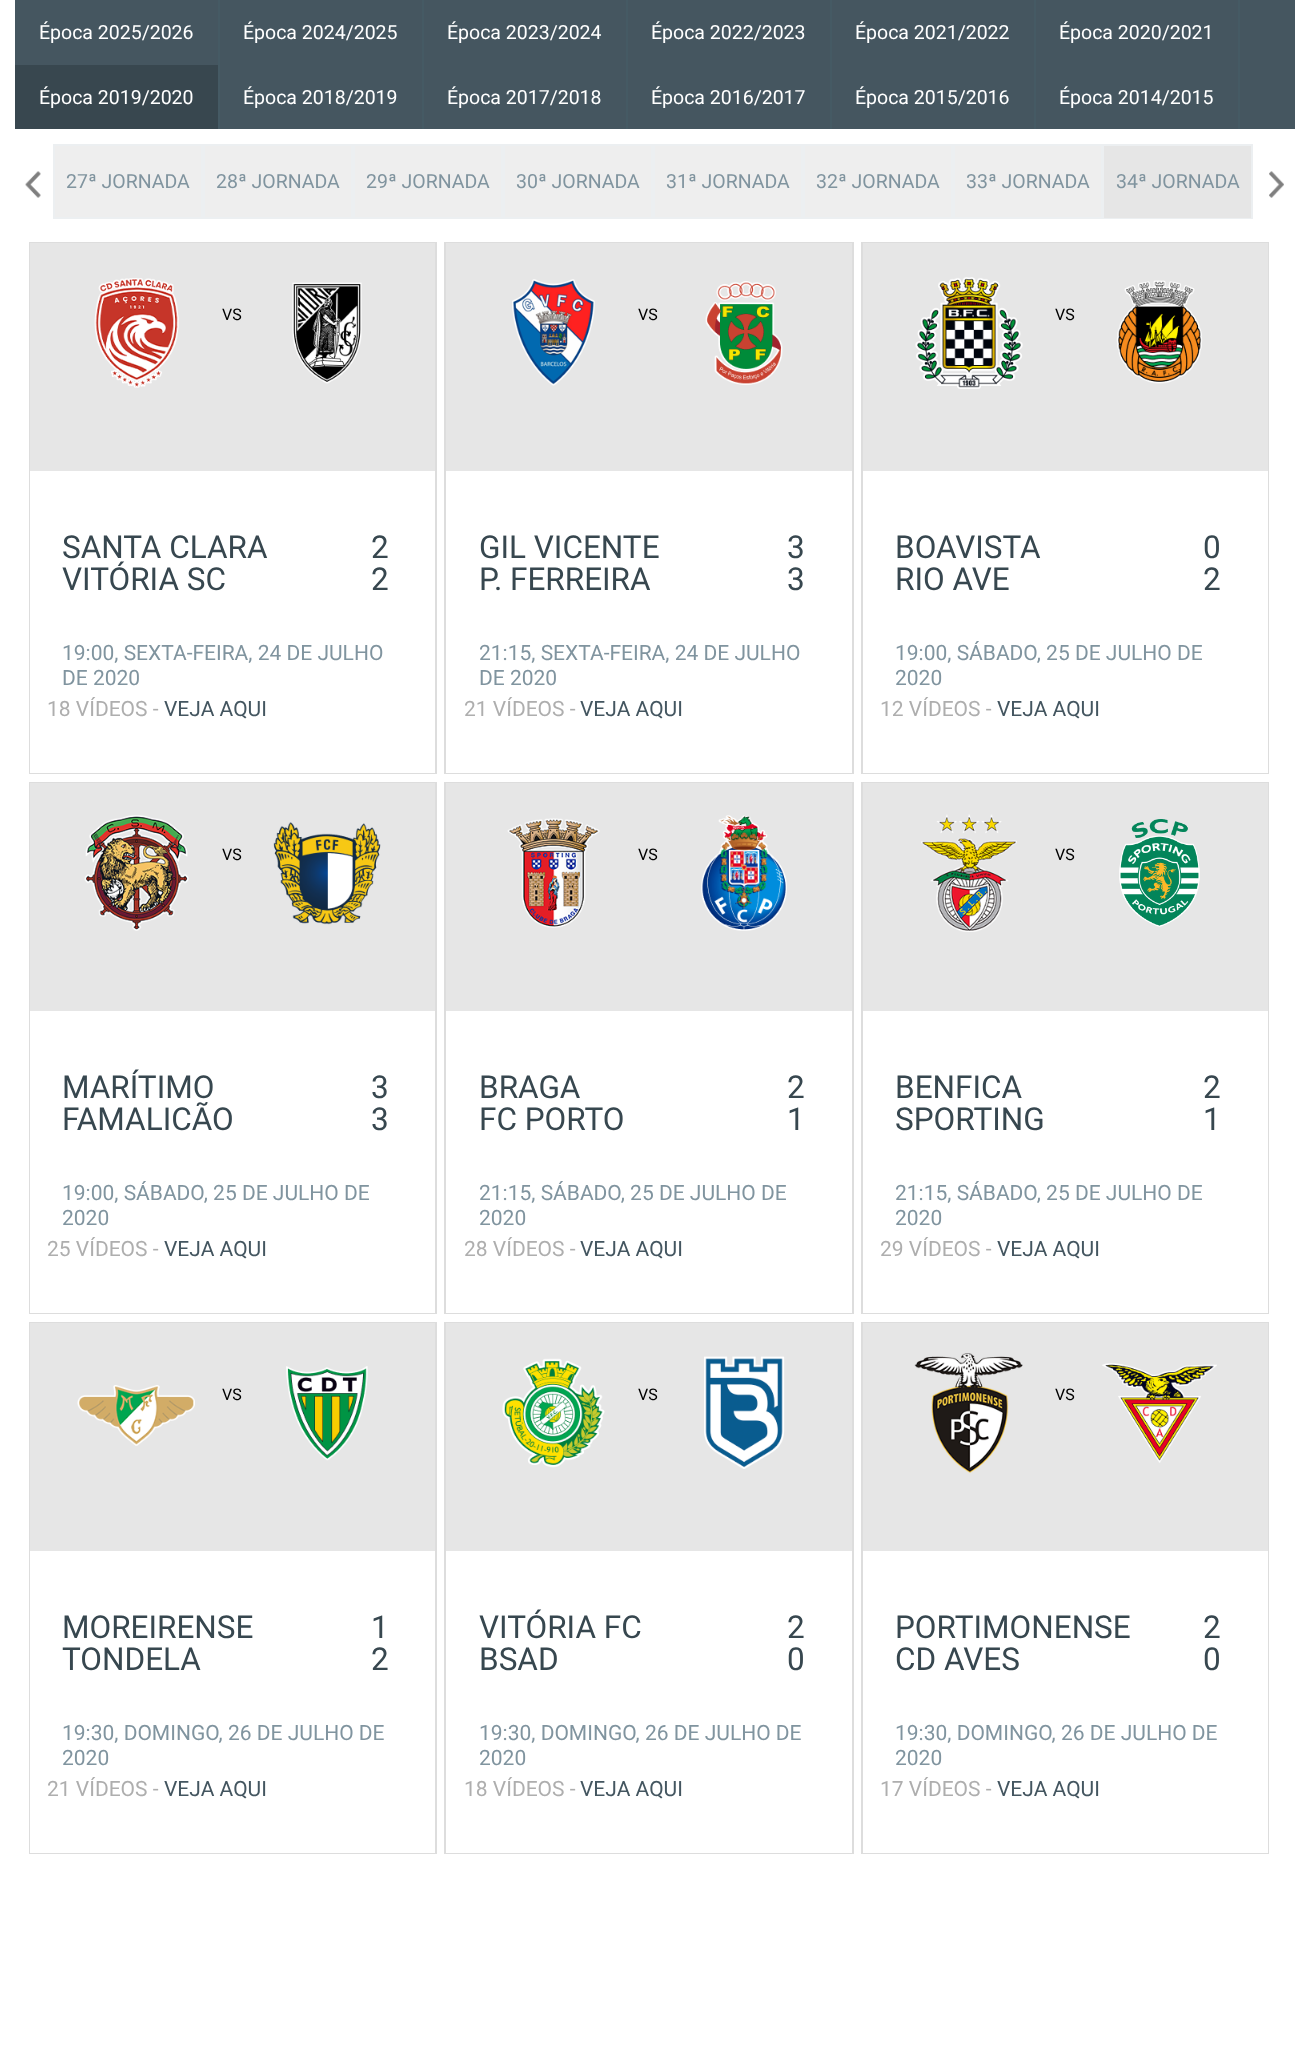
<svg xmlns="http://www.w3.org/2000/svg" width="1309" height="2050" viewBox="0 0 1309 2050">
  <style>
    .t1 { font: 19.5px Roboto; fill: #fff; }
    .t2 { font: 19.5px Roboto; fill: #80949f; }
    .t3 { font: 16px Roboto; fill: #000; }
    .t4 { font: 31.5px Roboto; fill: #37474f; }
    .t5 { font: 21px Roboto; fill: #80949f; }
    .t6 { font: 21px Roboto; fill: #aeaeae; }
    .t7 { font: 21px Roboto; fill: #445660; }
  </style>
  <rect width="100%" height="100%" fill="#fff"/>
  <rect x="15" y="0" width="1280" height="129" fill="#455660"/>
  <rect x="218" y="0" width="2" height="129" fill="#455a64"/>
  <text x="39" y="39" class="t1">Época 2025/2026</text>
  <rect x="422" y="0" width="2" height="129" fill="#455a64"/>
  <text x="243" y="39" class="t1">Época 2024/2025</text>
  <rect x="626" y="0" width="2" height="129" fill="#455a64"/>
  <text x="447" y="39" class="t1">Época 2023/2024</text>
  <rect x="830" y="0" width="2" height="129" fill="#455a64"/>
  <text x="651" y="39" class="t1">Época 2022/2023</text>
  <rect x="1034" y="0" width="2" height="129" fill="#455a64"/>
  <text x="855" y="39" class="t1">Época 2021/2022</text>
  <rect x="1238" y="0" width="2" height="129" fill="#455a64"/>
  <text x="1059" y="39" class="t1">Época 2020/2021</text>
  <rect x="15" y="65" width="203" height="64" fill="#38474f"/>
  <text x="39" y="104" class="t1">Época 2019/2020</text>
  <text x="243" y="104" class="t1">Época 2018/2019</text>
  <text x="447" y="104" class="t1">Época 2017/2018</text>
  <text x="651" y="104" class="t1">Época 2016/2017</text>
  <text x="855" y="104" class="t1">Época 2015/2016</text>
  <text x="1059" y="104" class="t1">Época 2014/2015</text>
  <image x="25" y="171" width="16" height="27" href="images/1.png"/>
  <image x="1269" y="171" width="15" height="27" href="images/2.png"/>
  <rect x="54" y="145" width="148" height="73" fill="#eee" stroke="#eceff1" stroke-width="2"/>
  <text x="66" y="188" class="t2">27ª JORNADA</text>
  <rect x="204" y="145" width="148" height="73" fill="#eee" stroke="#eceff1" stroke-width="2"/>
  <text x="216" y="188" class="t2">28ª JORNADA</text>
  <rect x="354" y="145" width="148" height="73" fill="#eee" stroke="#eceff1" stroke-width="2"/>
  <text x="366" y="188" class="t2">29ª JORNADA</text>
  <rect x="504" y="145" width="148" height="73" fill="#eee" stroke="#eceff1" stroke-width="2"/>
  <text x="516" y="188" class="t2">30ª JORNADA</text>
  <rect x="654" y="145" width="148" height="73" fill="#eee" stroke="#eceff1" stroke-width="2"/>
  <text x="666" y="188" class="t2">31ª JORNADA</text>
  <rect x="804" y="145" width="148" height="73" fill="#eee" stroke="#eceff1" stroke-width="2"/>
  <text x="816" y="188" class="t2">32ª JORNADA</text>
  <rect x="954" y="145" width="148" height="73" fill="#eee" stroke="#eceff1" stroke-width="2"/>
  <text x="966" y="188" class="t2">33ª JORNADA</text>
  <rect x="1104" y="145" width="148" height="73" fill="none" stroke="#eceff1" stroke-width="2"/>
  <rect x="1104" y="146" width="147" height="72" fill="#e6e6e6"/>
  <text x="1116" y="188" class="t2">34ª JORNADA</text>
  <rect x="30" y="243" width="406" height="530" fill="none" stroke="#ddd" stroke-width="2"/>
  <rect x="30" y="471" width="405" height="302" fill="#fff"/>
  <rect x="30" y="243" width="405" height="228" fill="#e6e6e6"/>
  <image x="94" y="278" width="85" height="110" href="images/3.png"/>
  <text x="222" y="320" class="t3">VS</text>
  <image x="292" y="282" width="70" height="102" href="images/4.png"/>
  <text x="62" y="558" class="t4">SANTA CLARA</text>
  <text x="371" y="558" class="t4">2</text>
  <text x="62" y="590" class="t4">VITÓRIA SC</text>
  <text x="371" y="590" class="t4">2</text>
  <text x="62" y="660" class="t5">19:00, SEXTA-FEIRA, 24 DE JULHO</text>
  <text x="62" y="685" class="t5">DE 2020</text>
  <text x="47" y="716" class="t6">18 VÍDEOS -</text>
  <text x="164" y="716" class="t7">VEJA AQUI</text>
  <rect x="445" y="243" width="408" height="530" fill="none" stroke="#ddd" stroke-width="2"/>
  <rect x="446" y="772" width="406" height="1" fill="#fff"/>
  <rect x="446" y="243" width="406" height="228" fill="#e6e6e6"/>
  <image x="512" y="279" width="83" height="107" href="images/5.png"/>
  <text x="638" y="320" class="t3">VS</text>
  <image x="705" y="281" width="78" height="104" href="images/6.png"/>
  <text x="479" y="558" class="t4">GIL VICENTE</text>
  <text x="787" y="558" class="t4">3</text>
  <text x="479" y="590" class="t4">P. FERREIRA</text>
  <text x="787" y="590" class="t4">3</text>
  <text x="479" y="660" class="t5">21:15, SEXTA-FEIRA, 24 DE JULHO</text>
  <text x="479" y="685" class="t5">DE 2020</text>
  <text x="464" y="716" class="t6">21 VÍDEOS -</text>
  <text x="580" y="716" class="t7">VEJA AQUI</text>
  <rect x="862" y="243" width="406" height="530" fill="none" stroke="#ddd" stroke-width="2"/>
  <rect x="863" y="471" width="405" height="302" fill="#fff"/>
  <rect x="863" y="243" width="405" height="228" fill="#e6e6e6"/>
  <image x="915" y="277" width="108" height="112" href="images/7.png"/>
  <text x="1055" y="320" class="t3">VS</text>
  <image x="1116" y="280" width="87" height="104" href="images/8.png"/>
  <text x="895" y="558" class="t4">BOAVISTA</text>
  <text x="1203" y="558" class="t4">0</text>
  <text x="895" y="590" class="t4">RIO AVE</text>
  <text x="1203" y="590" class="t4">2</text>
  <text x="895" y="660" class="t5">19:00, SÁBADO, 25 DE JULHO DE</text>
  <text x="895" y="685" class="t5">2020</text>
  <text x="880" y="716" class="t6">12 VÍDEOS -</text>
  <text x="997" y="716" class="t7">VEJA AQUI</text>
  <rect x="30" y="783" width="406" height="530" fill="none" stroke="#ddd" stroke-width="2"/>
  <rect x="30" y="1011" width="405" height="302" fill="#fff"/>
  <rect x="30" y="783" width="405" height="228" fill="#e6e6e6"/>
  <image x="84" y="815" width="105" height="116" href="images/9.png"/>
  <text x="222" y="860" class="t3">VS</text>
  <image x="273" y="822" width="108" height="103" href="images/10.png"/>
  <text x="62" y="1098" class="t4">MARÍTIMO</text>
  <text x="371" y="1098" class="t4">3</text>
  <text x="62" y="1130" class="t4">FAMALICÃO</text>
  <text x="371" y="1130" class="t4">3</text>
  <text x="62" y="1200" class="t5">19:00, SÁBADO, 25 DE JULHO DE</text>
  <text x="62" y="1225" class="t5">2020</text>
  <text x="47" y="1256" class="t6">25 VÍDEOS -</text>
  <text x="164" y="1256" class="t7">VEJA AQUI</text>
  <rect x="445" y="783" width="408" height="530" fill="none" stroke="#ddd" stroke-width="2"/>
  <rect x="446" y="1312" width="406" height="1" fill="#fff"/>
  <rect x="446" y="783" width="406" height="228" fill="#e6e6e6"/>
  <image x="507" y="818" width="93" height="110" href="images/11.png"/>
  <text x="638" y="860" class="t3">VS</text>
  <image x="701" y="815" width="86" height="116" href="images/12.png"/>
  <text x="479" y="1098" class="t4">BRAGA</text>
  <text x="787" y="1098" class="t4">2</text>
  <text x="479" y="1130" class="t4">FC PORTO</text>
  <text x="787" y="1130" class="t4">1</text>
  <text x="479" y="1200" class="t5">21:15, SÁBADO, 25 DE JULHO DE</text>
  <text x="479" y="1225" class="t5">2020</text>
  <text x="464" y="1256" class="t6">28 VÍDEOS -</text>
  <text x="580" y="1256" class="t7">VEJA AQUI</text>
  <rect x="862" y="783" width="406" height="530" fill="none" stroke="#ddd" stroke-width="2"/>
  <rect x="863" y="1011" width="405" height="302" fill="#fff"/>
  <rect x="863" y="783" width="405" height="228" fill="#e6e6e6"/>
  <image x="921" y="814" width="96" height="118" href="images/13.png"/>
  <text x="1055" y="860" class="t3">VS</text>
  <image x="1119" y="819" width="81" height="108" href="images/14.png"/>
  <text x="895" y="1098" class="t4">BENFICA</text>
  <text x="1203" y="1098" class="t4">2</text>
  <text x="895" y="1130" class="t4">SPORTING</text>
  <text x="1203" y="1130" class="t4">1</text>
  <text x="895" y="1200" class="t5">21:15, SÁBADO, 25 DE JULHO DE</text>
  <text x="895" y="1225" class="t5">2020</text>
  <text x="880" y="1256" class="t6">29 VÍDEOS -</text>
  <text x="997" y="1256" class="t7">VEJA AQUI</text>
  <rect x="30" y="1323" width="406" height="530" fill="none" stroke="#ddd" stroke-width="2"/>
  <rect x="30" y="1551" width="405" height="302" fill="#fff"/>
  <rect x="30" y="1323" width="405" height="228" fill="#e6e6e6"/>
  <image x="77" y="1385" width="118" height="61" href="images/15.png"/>
  <text x="222" y="1400" class="t3">VS</text>
  <image x="286" y="1366" width="82" height="95" href="images/16.png"/>
  <text x="62" y="1638" class="t4">MOREIRENSE</text>
  <text x="371" y="1638" class="t4">1</text>
  <text x="62" y="1670" class="t4">TONDELA</text>
  <text x="371" y="1670" class="t4">2</text>
  <text x="62" y="1740" class="t5">19:30, DOMINGO, 26 DE JULHO DE</text>
  <text x="62" y="1765" class="t5">2020</text>
  <text x="47" y="1796" class="t6">21 VÍDEOS -</text>
  <text x="164" y="1796" class="t7">VEJA AQUI</text>
  <rect x="445" y="1323" width="408" height="530" fill="none" stroke="#ddd" stroke-width="2"/>
  <rect x="446" y="1852" width="406" height="1" fill="#fff"/>
  <rect x="446" y="1323" width="406" height="228" fill="#e6e6e6"/>
  <image x="502" y="1358" width="103" height="110" href="images/17.png"/>
  <text x="638" y="1400" class="t3">VS</text>
  <image x="704" y="1356" width="81" height="113" href="images/18.png"/>
  <text x="479" y="1638" class="t4">VITÓRIA FC</text>
  <text x="787" y="1638" class="t4">2</text>
  <text x="479" y="1670" class="t4">BSAD</text>
  <text x="787" y="1670" class="t4">0</text>
  <text x="479" y="1740" class="t5">19:30, DOMINGO, 26 DE JULHO DE</text>
  <text x="479" y="1765" class="t5">2020</text>
  <text x="464" y="1796" class="t6">18 VÍDEOS -</text>
  <text x="580" y="1796" class="t7">VEJA AQUI</text>
  <rect x="862" y="1323" width="406" height="530" fill="none" stroke="#ddd" stroke-width="2"/>
  <rect x="863" y="1551" width="405" height="302" fill="#fff"/>
  <rect x="863" y="1323" width="405" height="228" fill="#e6e6e6"/>
  <image x="914" y="1353" width="109" height="120" href="images/19.png"/>
  <text x="1055" y="1400" class="t3">VS</text>
  <image x="1102" y="1363" width="115" height="100" href="images/20.png"/>
  <text x="895" y="1638" class="t4">PORTIMONENSE</text>
  <text x="1203" y="1638" class="t4">2</text>
  <text x="895" y="1670" class="t4">CD AVES</text>
  <text x="1203" y="1670" class="t4">0</text>
  <text x="895" y="1740" class="t5">19:30, DOMINGO, 26 DE JULHO DE</text>
  <text x="895" y="1765" class="t5">2020</text>
  <text x="880" y="1796" class="t6">17 VÍDEOS -</text>
  <text x="997" y="1796" class="t7">VEJA AQUI</text>
</svg>
